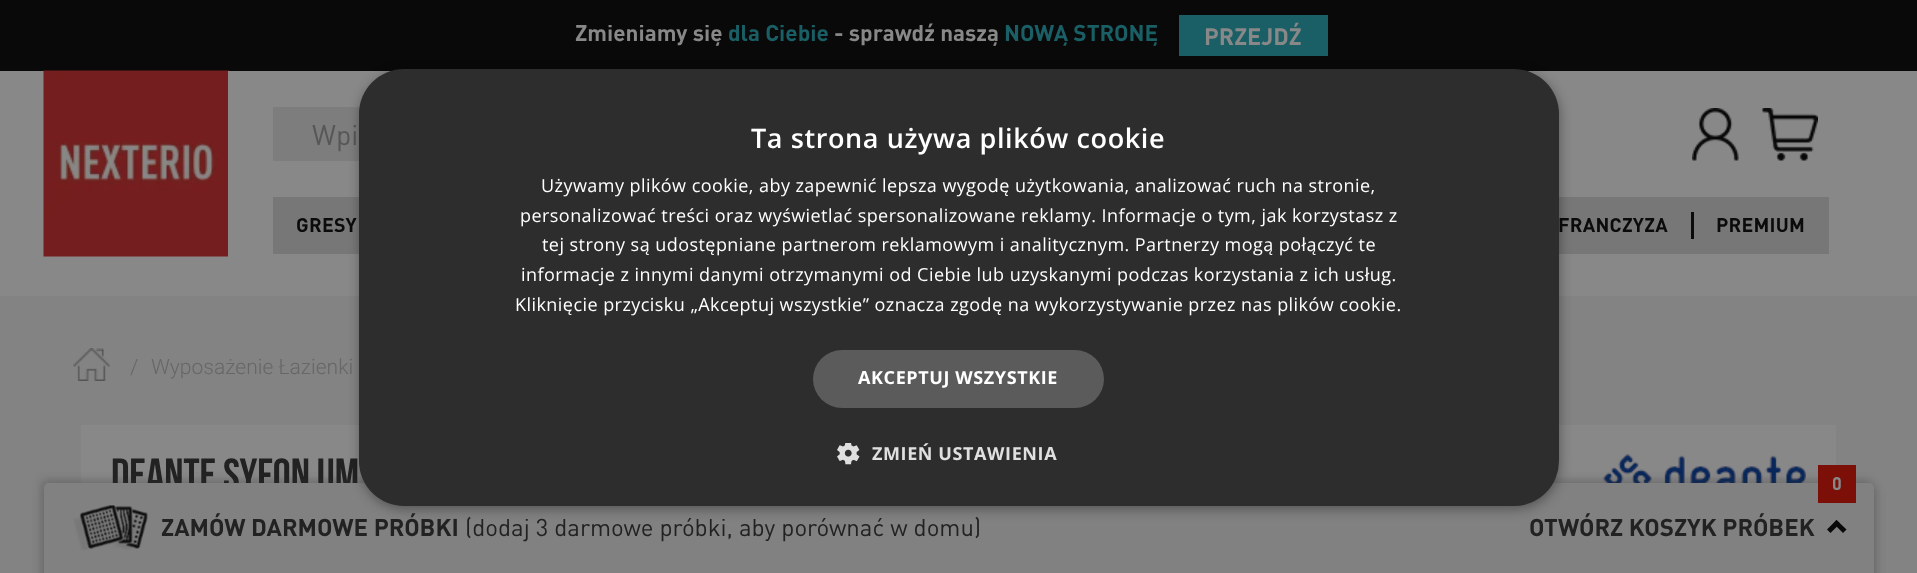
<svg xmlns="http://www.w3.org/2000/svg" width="1917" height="573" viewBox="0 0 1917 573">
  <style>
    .t1 { font: bold 22.5px DIN; fill: #888; }
    .t2 { font: bold 22.5px DIN; fill: #1a5f66; }
    .t3 { font: bold 23.5px DIN; fill: #888; }
    .t4 { font: 28px DIN; fill: #575757; }
    .t5 { font: bold 19.5px DIN; letter-spacing: 0.25px; fill: #0b0b0b; }
    .t6 { font: 300 21px Roboto; fill: #676767; }
    .t7 { font: bold 45px Bebas Neue; fill: #222; }
    .t8 { font: 600 27px Open Sans; letter-spacing: 0.6px; fill: #fff; }
    .t9 { font: 18px Open Sans; letter-spacing: 0.45px; fill: #fff; }
    .t10 { font: bold 18px Open Sans; letter-spacing: 0.6px; fill: #fff; }
    .t11 { font: bold 18px Open Sans; letter-spacing: 0.6px; fill: #e0e0e0; }
    .t12 { font: bold 18px DIN; fill: #888; }
    .t13 { font: bold 24px DIN; fill: #222; }
    .t14 { font: 24px DIN; fill: #222; }
  </style>
  <rect width="100%" height="100%" fill="#888"/>
  <rect x="0" y="0" width="1917" height="71" fill="#090909"/>
  <text x="575" y="41" class="t1">Zmieniamy się</text>
  <text x="728" y="41" class="t2">dla Ciebie</text>
  <text x="834" y="41" class="t1">- sprawdź naszą</text>
  <text x="1004" y="41" class="t2">NOWĄ STRONĘ</text>
  <rect x="1179" y="15" width="149" height="41" fill="#1a5f66"/>
  <text x="1204" y="45" class="t3">PRZEJDŹ</text>
  <image x="43" y="70" width="187" height="187" href="images/1.png"/>
  <rect x="228" y="71" width="2" height="186" fill="#888"/>
  <rect x="273" y="107" width="87" height="54" fill="#7d7d7d"/>
  <text x="312" y="145" class="t4">Wpi</text>
  <image x="1692" y="108" width="47" height="53" href="images/2.png"/>
  <image x="1762" y="108" width="56" height="53" href="images/3.png"/>
  <rect x="273" y="197" width="1556" height="57" fill="#777"/>
  <text x="296" y="232" class="t5">GRESY</text>
  <rect x="1691" y="212" width="3" height="27" fill="#0b0b0b"/>
  <text x="1558" y="232" class="t5">FRANCZYZA</text>
  <text x="1716" y="232" class="t5">PREMIUM</text>
  <rect x="0" y="296" width="1917" height="277" fill="#838383"/>
  <image x="73" y="348" width="37" height="33" href="images/4.png"/>
  <text x="130" y="374" class="t6">/</text>
  <text x="151" y="374" class="t6">Wyposażenie Łazienki</text>
  <rect x="81" y="425" width="1755" height="58" fill="#888"/>
  <text x="111" y="490" class="t7">DEANTE Syfon um</text>
  <image x="1603" y="454" width="203" height="29" href="images/5.png"/>
  <rect x="47" y="486" width="1830" height="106" rx="5" fill="#30303040" filter="blur(4.5px)"/>
  <rect x="41" y="480" width="1830" height="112" rx="5" fill="#30303040" filter="blur(4.5px)"/>
  <path d="M49 483H1869C1872 483 1874 485 1874 488V573H44V488C44 485 46 483 49 483Z" fill="#818181"/>
  <rect x="360" y="72" width="1200" height="437" rx="45" fill="#00000059" filter="blur(6px)"/>
  <rect x="359" y="69" width="1200" height="437" rx="45" fill="#2d2d2d"/>
  <text x="751" y="148" class="t8">Ta strona używa plików cookie</text>
  <text x="541" y="192" class="t9">Używamy plików cookie, aby zapewnić lepsza wygodę użytkowania, analizować ruch na stronie,</text>
  <text x="520" y="222" class="t9">personalizować treści oraz wyświetlać spersonalizowane reklamy. Informacje o tym, jak korzystasz z</text>
  <text x="542" y="251" class="t9">tej strony są udostępniane partnerom reklamowym i analitycznym. Partnerzy mogą połączyć te</text>
  <text x="521" y="281" class="t9">informacje z innymi danymi otrzymanymi od Ciebie lub uzyskanymi podczas korzystania z ich usług.</text>
  <text x="515" y="311" class="t9">Kliknięcie przycisku „Akceptuj wszystkie” oznacza zgodę na wykorzystywanie przez nas plików cookie.</text>
  <rect x="813" y="350" width="291" height="58" rx="29" fill="#5b5b5b"/>
  <text x="858" y="384" class="t10">AKCEPTUJ WSZYSTKIE</text>
  <image x="837" y="443" width="23" height="22" href="images/6.png"/>
  <text x="872" y="460" class="t11">ZMIEŃ USTAWIENIA</text>
  <rect x="1818" y="465" width="38" height="38" fill="#7c1009"/>
  <text x="1832" y="490" class="t12">0</text>
  <image x="73" y="505" width="75" height="46" href="images/7.png"/>
  <text x="161" y="536" class="t13">ZAMÓW DARMOWE PRÓBKI</text>
  <text x="465" y="536" class="t14">(dodaj 3 darmowe próbki, aby porównać w domu)</text>
  <text x="1529" y="536" class="t13">OTWÓRZ KOSZYK PRÓBEK</text>
  <path d="M1830.5 533L1827 529.5L1836.5 520L1840 523.5Z" fill="#090909"/>
  <path d="M1843 533L1833.5 523.5L1836.5 520L1846.5 529.5Z" fill="#090909"/>
</svg>
